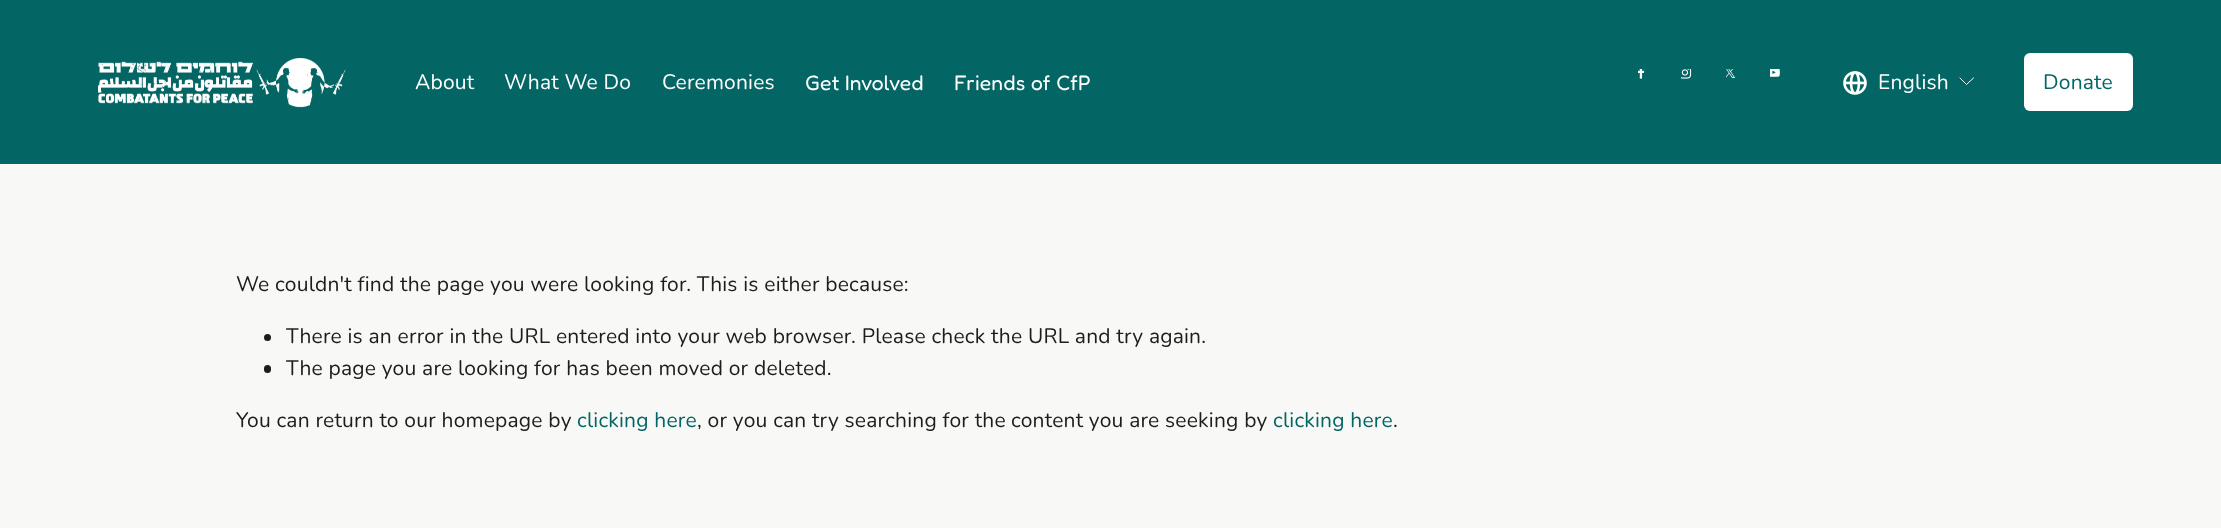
<svg xmlns="http://www.w3.org/2000/svg" width="2221" height="528" viewBox="0 0 2221 528">
  <style>
    .t1 { font: 21px Nunito; letter-spacing: 0.2px; fill: #fff; }
    .t2 { font: 21px Fredoka; letter-spacing: 0.2px; fill: #fff; }
    .t3 { font: 21px Nunito; letter-spacing: 0.2px; fill: #036564; }
    .t4 { font: 21px Nunito; letter-spacing: 0.2px; fill: #1d1d1b; }
  </style>
  <rect width="100%" height="100%" fill="#f8f9f7"/>
  <rect x="0" y="0" width="2221" height="164" fill="#036564"/>
  <image x="98" y="58" width="248" height="50" href="images/1.png"/>
  <text x="415" y="89" class="t1">About</text>
  <text x="504" y="89" class="t1">What We Do</text>
  <text x="662" y="89" class="t1">Ceremonies</text>
  <text x="805" y="90" class="t2">Get Involved</text>
  <text x="954" y="90" class="t2">Friends of CfP</text>
  <image x="1638" y="69" width="7" height="10" href="images/2.png"/>
  <image x="1681" y="69" width="11" height="10" href="images/3.png"/>
  <image x="1726" y="69" width="10" height="9" href="images/4.png"/>
  <image x="1770" y="69" width="10" height="8" href="images/5.png"/>
  <image x="1843" y="71" width="24" height="24" href="images/6.png"/>
  <text x="1878" y="89" class="t1">English</text>
  <path d="M1973.5 78L1966.5 84.5L1960 78" fill="none" stroke="#fff" stroke-linecap="square"/>
  <rect x="2024" y="53" width="109" height="58" rx="6" fill="#fff"/>
  <text x="2043" y="89" class="t3">Donate</text>
  <text x="236" y="291" class="t4">We couldn't find the page you were looking for. This is either because:</text>
  <circle cx="267.5" cy="337.5" r="3.5" fill="#1d1d1b"/>
  <text x="286" y="343" class="t4">There is an error in the URL entered into your web browser. Please check the URL and try again.</text>
  <rect x="264" y="365" width="7" height="8" rx="3.5" fill="#1d1d1b"/>
  <text x="286" y="375" class="t4">The page you are looking for has been moved or deleted.</text>
  <text x="236" y="427" class="t4">You can return to our homepage by</text>
  <text x="577" y="427" class="t3">clicking here</text>
  <text x="697" y="427" class="t4">, or you can try searching for the</text>
  <text x="1011" y="427" class="t4">content you are seeking by</text>
  <text x="1273" y="427" class="t3">clicking here</text>
  <text x="1393" y="427" class="t4">.</text>
</svg>
